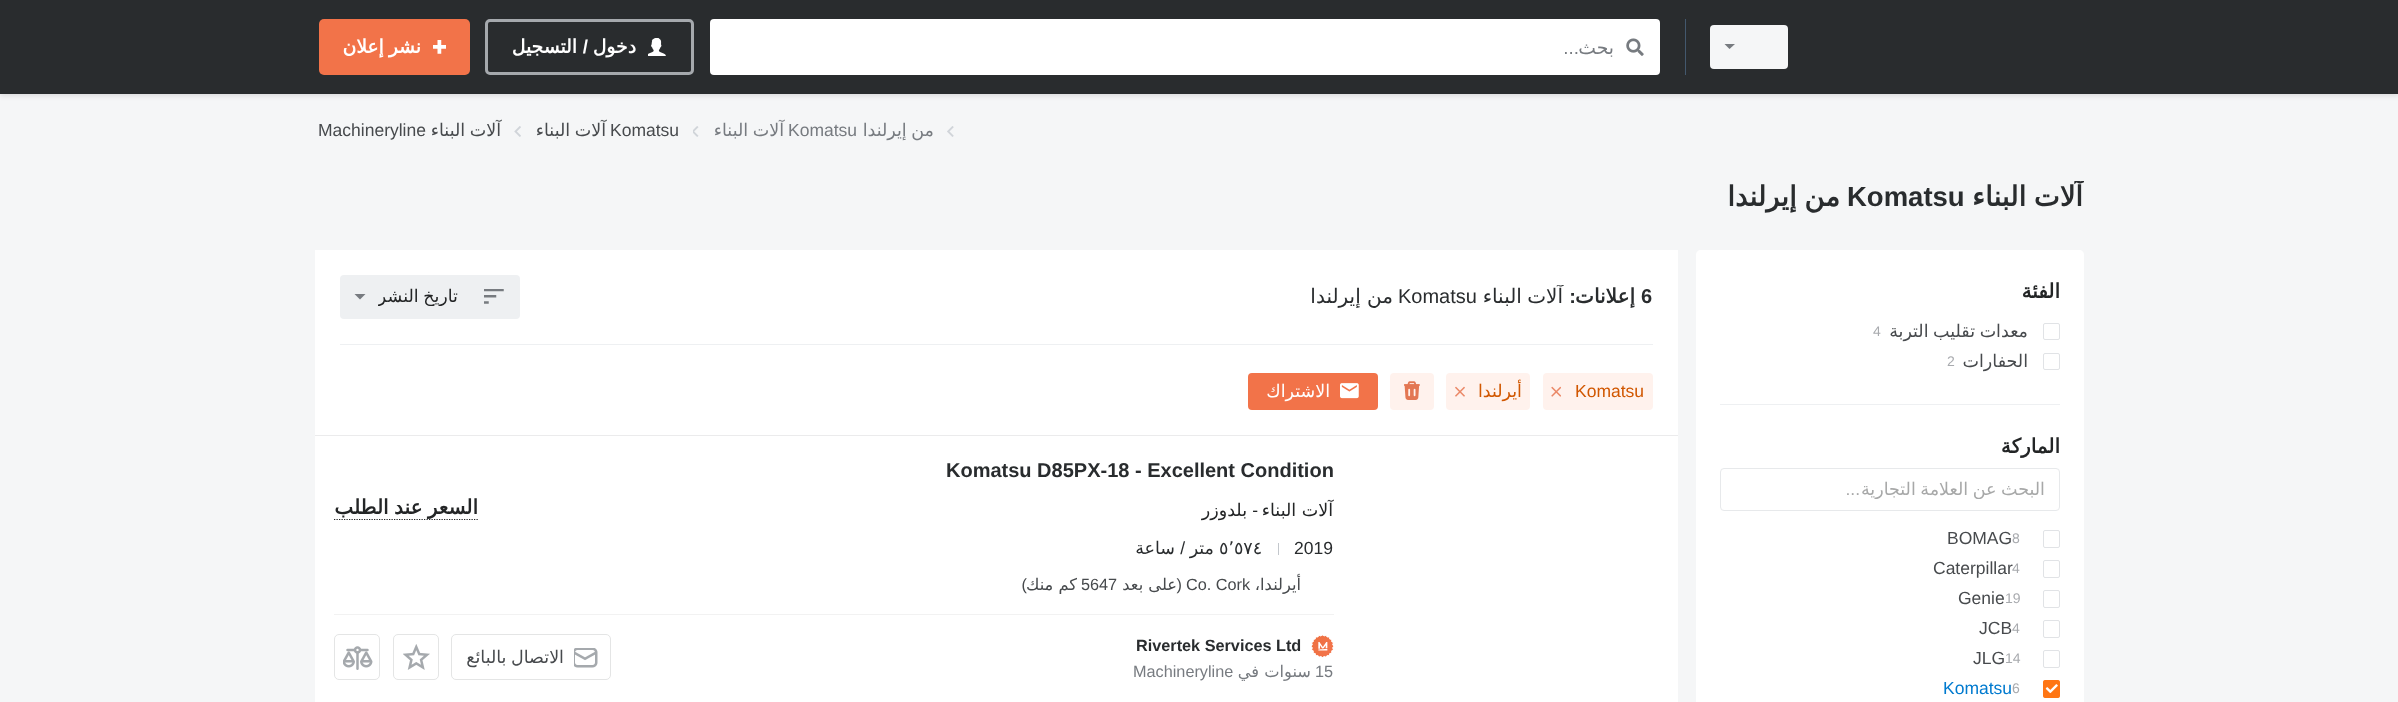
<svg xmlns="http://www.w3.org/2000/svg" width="2398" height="702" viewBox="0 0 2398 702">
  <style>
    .t1 { font: 18.75px DejaVu Sans; direction: rtl; fill: #777b80; }
    .t2 { font: 18.75px Liberation Sans; direction: rtl; fill: #777b80; }
    .t3 { font: bold 18.75px DejaVu Sans; direction: rtl; fill: #fff; }
    .t4 { font: bold 18.75px Liberation Sans; direction: rtl; fill: #fff; }
    .t5 { font: 17.5px DejaVu Sans; direction: rtl; fill: #777b80; }
    .t6 { font: 17.5px Liberation Sans; fill: #777b80; }
    .t7 { font: 17.5px Liberation Sans; fill: #474a4d; }
    .t8 { font: 17.5px DejaVu Sans; direction: rtl; fill: #474a4d; }
    .t9 { font: bold 27.5px DejaVu Sans; direction: rtl; fill: #292c2e; }
    .t10 { font: bold 27.5px Liberation Sans; fill: #292c2e; }
    .t11 { font: bold 20px DejaVu Sans; direction: rtl; fill: #232526; }
    .t12 { font: 14px Liberation Sans; fill: #a8aaae; }
    .t13 { font: 17.5px DejaVu Sans; direction: rtl; fill: #a7a8a8; }
    .t14 { font: 17.5px Liberation Sans; direction: rtl; fill: #a7a8a8; }
    .t15 { font: 17.5px Liberation Sans; fill: #007acf; }
    .t16 { font: bold 20px Liberation Sans; fill: #292c2e; }
    .t17 { font: bold 20px DejaVu Sans; direction: rtl; fill: #292c2e; }
    .t18 { font: bold 20px Liberation Sans; direction: rtl; fill: #292c2e; }
    .t19 { font: 20px DejaVu Sans; direction: rtl; fill: #292c2e; }
    .t20 { font: 20px Liberation Sans; fill: #292c2e; }
    .t21 { font: 17.5px DejaVu Sans; direction: rtl; fill: #232526; }
    .t22 { font: 17.5px Liberation Sans; fill: #d15701; }
    .t23 { font: 17.5px DejaVu Sans; direction: rtl; fill: #d15701; }
    .t24 { font: 17.5px DejaVu Sans; direction: rtl; fill: #fff; }
    .t25 { font: 17.5px Liberation Sans; direction: rtl; fill: #232526; }
    .t26 { font: 17.5px Liberation Sans; fill: #292c2e; }
    .t27 { font: 17.5px DejaVu Sans; fill: #292c2e; }
    .t28 { font: 17.5px DejaVu Sans; direction: rtl; fill: #292c2e; }
    .t29 { font: 17.5px Liberation Sans; direction: rtl; fill: #292c2e; }
    .t30 { font: 16.25px DejaVu Sans; direction: rtl; fill: #474a4d; }
    .t31 { font: 16.25px Liberation Sans; fill: #474a4d; }
    .t32 { font: 16.25px Liberation Sans; direction: rtl; fill: #474a4d; }
    .t33 { font: bold 16.25px Liberation Sans; fill: #292c2e; }
    .t34 { font: 16.25px Liberation Sans; fill: #777b80; }
    .t35 { font: 16.25px DejaVu Sans; direction: rtl; fill: #777b80; }
  </style>
  <defs>
    <clipPath id="clip1"><rect x="315" y="181" width="1769" height="69"/></clipPath>
    <clipPath id="clip2"><rect x="1735" y="479" width="310" height="20"/></clipPath>
    <clipPath id="clip3"><rect x="1311" y="285" width="342" height="24"/></clipPath>
    <clipPath id="clip4"><rect x="378" y="286" width="81" height="20"/></clipPath>
  </defs>
  <rect width="100%" height="100%" fill="#f5f6f7"/>
  <rect x="0" y="3" width="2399" height="93" fill="#0000001a" filter="blur(2.5px)"/>
  <rect x="0" y="0" width="2398" height="94" fill="#292c2e"/>
  <rect x="1710" y="25" width="78" height="44" rx="4" fill="#f5f6f7"/>
  <path d="M1724.5 44H1735L1729.5 49Z" fill="#777b80"/>
  <rect x="1685" y="19" width="1" height="56" fill="#43586d"/>
  <rect x="710" y="19" width="950" height="56" rx="4" fill="#fff"/>
  <image x="1626" y="38" width="18" height="18" href="images/1.png"/>
  <text x="1614" y="54" class="t1">بحث</text>
  <text x="1579" y="54" class="t2">...</text>
  <rect x="486.5" y="20.5" width="206" height="53" rx="3.5" fill="none" stroke="#a5a9ad" stroke-width="3"/>
  <image x="648" y="38" width="18" height="18" href="images/2.png"/>
  <text x="636" y="53" class="t3">دخول</text>
  <text x="588" y="53" class="t4">/</text>
  <text x="577" y="53" class="t3">التسجيل</text>
  <rect x="319" y="19" width="151" height="56" rx="5" fill="#f27349"/>
  <image x="433" y="40" width="13" height="14" href="images/3.png"/>
  <text x="421" y="53" word-spacing="-1" class="t3">نشر إعلان</text>
  <image x="947" y="126" width="7" height="11" href="images/4.png"/>
  <text x="934" y="136" word-spacing="-1" class="t5">من إيرلندا</text>
  <text x="788" y="136" class="t6">Komatsu</text>
  <text x="784" y="136" word-spacing="-1" class="t5">آلات البناء</text>
  <image x="693" y="126" width="6" height="11" href="images/5.png"/>
  <text x="610" y="136" class="t7">Komatsu</text>
  <text x="606" y="136" word-spacing="-1" class="t8">آلات البناء</text>
  <image x="514" y="126" width="7" height="11" href="images/6.png"/>
  <text x="501" y="136" word-spacing="-1" class="t8">آلات البناء</text>
  <text x="318" y="136" class="t7">Machineryline</text>
  <g clip-path="url(#clip1)">
    <text x="2083" y="206" word-spacing="-1" class="t9">آلات البناء</text>
  </g>
  <text x="1847" y="206" class="t10">Komatsu</text>
  <text x="1840" y="206" word-spacing="-1" class="t9">من إيرلندا</text>
  <path d="M1701 250H2079C2082 250 2084 252 2084 255V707H1696V255C1696 252 1698 250 1701 250Z" fill="#fff"/>
  <text x="2060" y="298" class="t11">الفئة</text>
  <rect x="2043.5" y="323.5" width="16" height="16" rx="1.5" fill="none" stroke="#e1e3e6"/>
  <text x="2028" y="337" word-spacing="-1" class="t8">معدات تقليب التربة</text>
  <text x="1873" y="336" class="t12">4</text>
  <rect x="2043.5" y="353.5" width="16" height="16" rx="1.5" fill="none" stroke="#e1e3e6"/>
  <text x="2028" y="367" class="t8">الحفارات</text>
  <text x="1947" y="366" class="t12">2</text>
  <rect x="1720" y="404" width="340" height="1" fill="#eef0f2"/>
  <text x="2060" y="453" class="t11">الماركة</text>
  <rect x="1720.5" y="468.5" width="339" height="42" rx="3.5" fill="none" stroke="#e7e9eb"/>
  <g clip-path="url(#clip2)">
    <text x="2045" y="495" word-spacing="-1" class="t13">البحث عن العلامة التجارية</text>
  </g>
  <text x="1860" y="495" class="t14">...</text>
  <rect x="2043.5" y="530.5" width="16" height="17" rx="1.5" fill="none" stroke="#e1e3e6"/>
  <text x="2012" y="543" class="t12">8</text>
  <text x="1947" y="544" class="t7">BOMAG</text>
  <rect x="2043.5" y="560.5" width="16" height="17" rx="1.5" fill="none" stroke="#e1e3e6"/>
  <text x="1933" y="574" class="t7">Caterpillar</text>
  <text x="2012" y="573" class="t12">4</text>
  <rect x="2043.5" y="590.5" width="16" height="17" rx="1.5" fill="none" stroke="#e1e3e6"/>
  <text x="2005" y="603" class="t12">19</text>
  <text x="1958" y="604" class="t7">Genie</text>
  <rect x="2043.5" y="620.5" width="16" height="17" rx="1.5" fill="none" stroke="#e1e3e6"/>
  <text x="2012" y="633" class="t12">4</text>
  <text x="1979" y="634" class="t7">JCB</text>
  <rect x="2043.5" y="650.5" width="16" height="17" rx="1.5" fill="none" stroke="#e1e3e6"/>
  <text x="2005" y="663" class="t12">14</text>
  <text x="1973" y="664" class="t7">JLG</text>
  <image x="2043" y="680" width="17" height="18" href="images/7.png"/>
  <text x="2012" y="693" class="t12">6</text>
  <text x="1943" y="694" class="t15">Komatsu</text>
  <rect x="315" y="250" width="1363" height="185" fill="#fff"/>
  <text x="1641" y="303" class="t16">6</text>
  <text x="1635" y="303" class="t17">إعلانات</text>
  <text x="1576" y="303" class="t18">:</text>
  <g clip-path="url(#clip3)">
    <text x="1563" y="303" word-spacing="-1" class="t19">آلات البناء</text>
  </g>
  <text x="1398" y="303" class="t20">Komatsu</text>
  <text x="1393" y="303" class="t19">من إيرلندا</text>
  <rect x="340" y="275" width="180" height="44" rx="4" fill="#eef0f2"/>
  <image x="484" y="289" width="20" height="15" href="images/8.png"/>
  <g clip-path="url(#clip4)">
    <text x="458" y="302" word-spacing="-1" class="t21">تاريخ النشر</text>
  </g>
  <path d="M354.5 294H365.5L360 299.5Z" fill="#777b80"/>
  <rect x="340" y="344" width="1313" height="1" fill="#eef0f2"/>
  <rect x="1543" y="373" width="110" height="37" rx="4" fill="#fff2ed"/>
  <text x="1575" y="397" class="t22">Komatsu</text>
  <image x="1551" y="386" width="10" height="11" href="images/9.png"/>
  <rect x="1446" y="373" width="84" height="37" rx="4" fill="#fff2ed"/>
  <text x="1522" y="397" class="t23">أيرلندا</text>
  <image x="1455" y="386" width="10" height="11" href="images/10.png"/>
  <rect x="1390" y="373" width="44" height="37" rx="4" fill="#fff2ed"/>
  <image x="1404" y="381" width="16" height="19" href="images/11.png"/>
  <rect x="1248" y="373" width="130" height="37" rx="4" fill="#f27349"/>
  <image x="1340" y="383" width="19" height="16" href="images/12.png"/>
  <text x="1330" y="397" class="t24">الاشتراك</text>
  <rect x="315" y="436" width="1363" height="266" fill="#fff"/>
  <rect x="315" y="435" width="1363" height="1" fill="#ebebec"/>
  <text x="946" y="477" class="t16">Komatsu D85PX-18 - Excellent Condition</text>
  <text x="1333" y="516" class="t21">آلات البناء</text>
  <text x="1258" y="516" class="t25">-</text>
  <text x="1247" y="516" class="t21">بلدوزر</text>
  <text x="1294" y="554" class="t26">2019</text>
  <rect x="1278" y="543" width="1" height="12" fill="#c3c7cc"/>
  <text x="1219" y="554" class="t27">٥٬٥٧٤</text>
  <text x="1214" y="554" class="t28">متر</text>
  <text x="1185" y="554" class="t29">/</text>
  <text x="1175" y="554" class="t28">ساعة</text>
  <path d="M334 519.5H479" fill="none" stroke="#232526" stroke-width="1.2" stroke-dasharray="1.25 1.25"/>
  <text x="478" y="514" word-spacing="-1" class="t11">السعر عند الطلب</text>
  <rect x="334" y="614" width="1000" height="1" fill="#f2f2f2"/>
  <text x="1301" y="590" class="t30">أيرلندا،</text>
  <text x="1186" y="590" class="t31">Co. Cork</text>
  <text x="1182" y="590" class="t32">(</text>
  <text x="1177" y="590" class="t30">على بعد</text>
  <text x="1081" y="590" class="t31">5647</text>
  <text x="1077" y="590" class="t30">كم منك</text>
  <text x="1027" y="590" class="t32">)</text>
  <image x="1311" y="635" width="23" height="23" href="images/13.png"/>
  <text x="1136" y="651" class="t33">Rivertek Services Ltd</text>
  <text x="1315" y="677" class="t34">15</text>
  <text x="1311" y="677" class="t35">سنوات في</text>
  <text x="1133" y="677" class="t34">Machineryline</text>
  <rect x="451.5" y="634.5" width="159" height="45" rx="4.5" fill="none" stroke="#e4e5e5"/>
  <image x="574" y="648" width="24" height="20" href="images/14.png"/>
  <text x="564" y="663" word-spacing="-1" class="t8">الاتصال بالبائع</text>
  <rect x="393.5" y="634.5" width="45" height="45" rx="4.5" fill="none" stroke="#e4e5e5"/>
  <image x="403" y="644" width="27" height="26" href="images/15.png"/>
  <rect x="334.5" y="634.5" width="45" height="45" rx="4.5" fill="none" stroke="#e4e5e5"/>
  <image x="343" y="646" width="30" height="24" href="images/16.png"/>
</svg>
